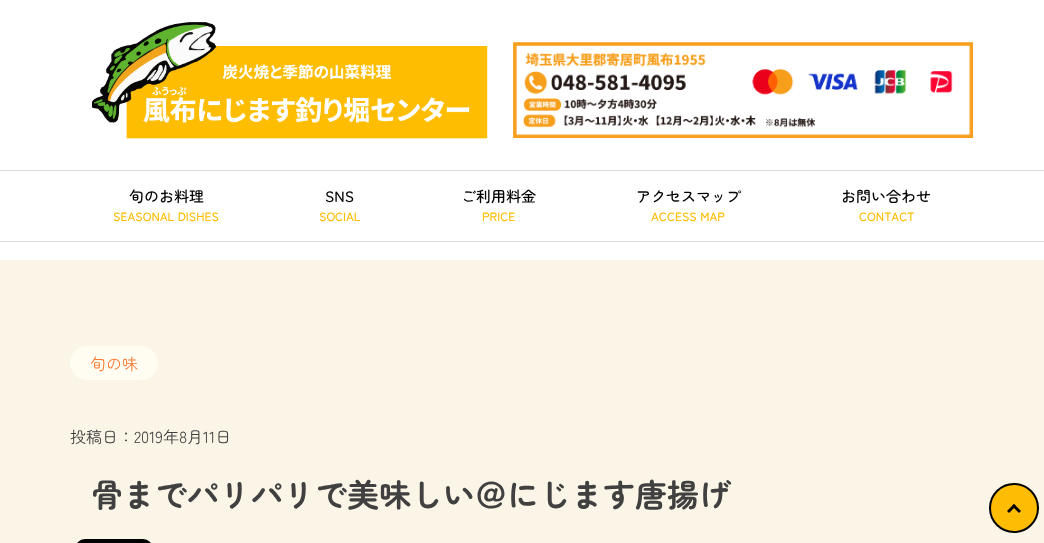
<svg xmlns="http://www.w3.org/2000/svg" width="1044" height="543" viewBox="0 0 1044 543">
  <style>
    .t1 { font: 500 15px Zen Maru Gothic; fill: #000; }
    .t2 { font: 500 12px Zen Maru Gothic; fill: #febd02; }
    .t3 { font: 16px Zen Maru Gothic; fill: #f97930; }
    .t4 { font: 16px Zen Maru Gothic; fill: #404040; }
    .t5 { font: bold 32px Zen Maru Gothic; fill: #404040; }
  </style>
  <rect width="100%" height="100%" fill="#fff"/>
  <image x="92" y="22" width="396" height="117" href="images/1.png"/>
  <image x="513" y="42" width="460" height="96" href="images/2.png"/>
  <rect x="0" y="170" width="1044" height="1" fill="#ddd"/>
  <rect x="0" y="241" width="1044" height="1" fill="#ddd"/>
  <text x="129" y="202" class="t1">旬のお料理</text>
  <text x="113" y="221" class="t2">SEASONAL DISHES</text>
  <text x="325" y="202" class="t1">SNS</text>
  <text x="319" y="221" class="t2">SOCIAL</text>
  <text x="461" y="202" class="t1">ご利用料金</text>
  <text x="482" y="221" class="t2">PRICE</text>
  <text x="636" y="202" class="t1">アクセスマップ</text>
  <text x="651" y="221" class="t2">ACCESS MAP</text>
  <text x="841" y="202" class="t1">お問い合わせ</text>
  <text x="859" y="221" class="t2">CONTACT</text>
  <rect x="0" y="260" width="1044" height="283" fill="#fbf5e7"/>
  <rect x="70" y="346" width="88" height="34" rx="17" fill="#fffdf2"/>
  <text x="90" y="370" class="t3">旬の味</text>
  <text x="70" y="443" class="t4">投稿日：2019年8月11日</text>
  <text x="91" y="507" class="t5">骨までパリパリで美味しい＠にじます唐揚げ</text>
  <image x="77" y="539" width="74" height="4" href="images/3.png"/>
  <circle cx="1014" cy="508" r="24" fill="#febd02" stroke="#000" stroke-width="2"/>
  <path d="M1007 511L1014 504L1016 506L1009 513Z" fill="#000"/>
  <path d="M1012 506L1014 504L1021 511L1019 513Z" fill="#000"/>
</svg>
